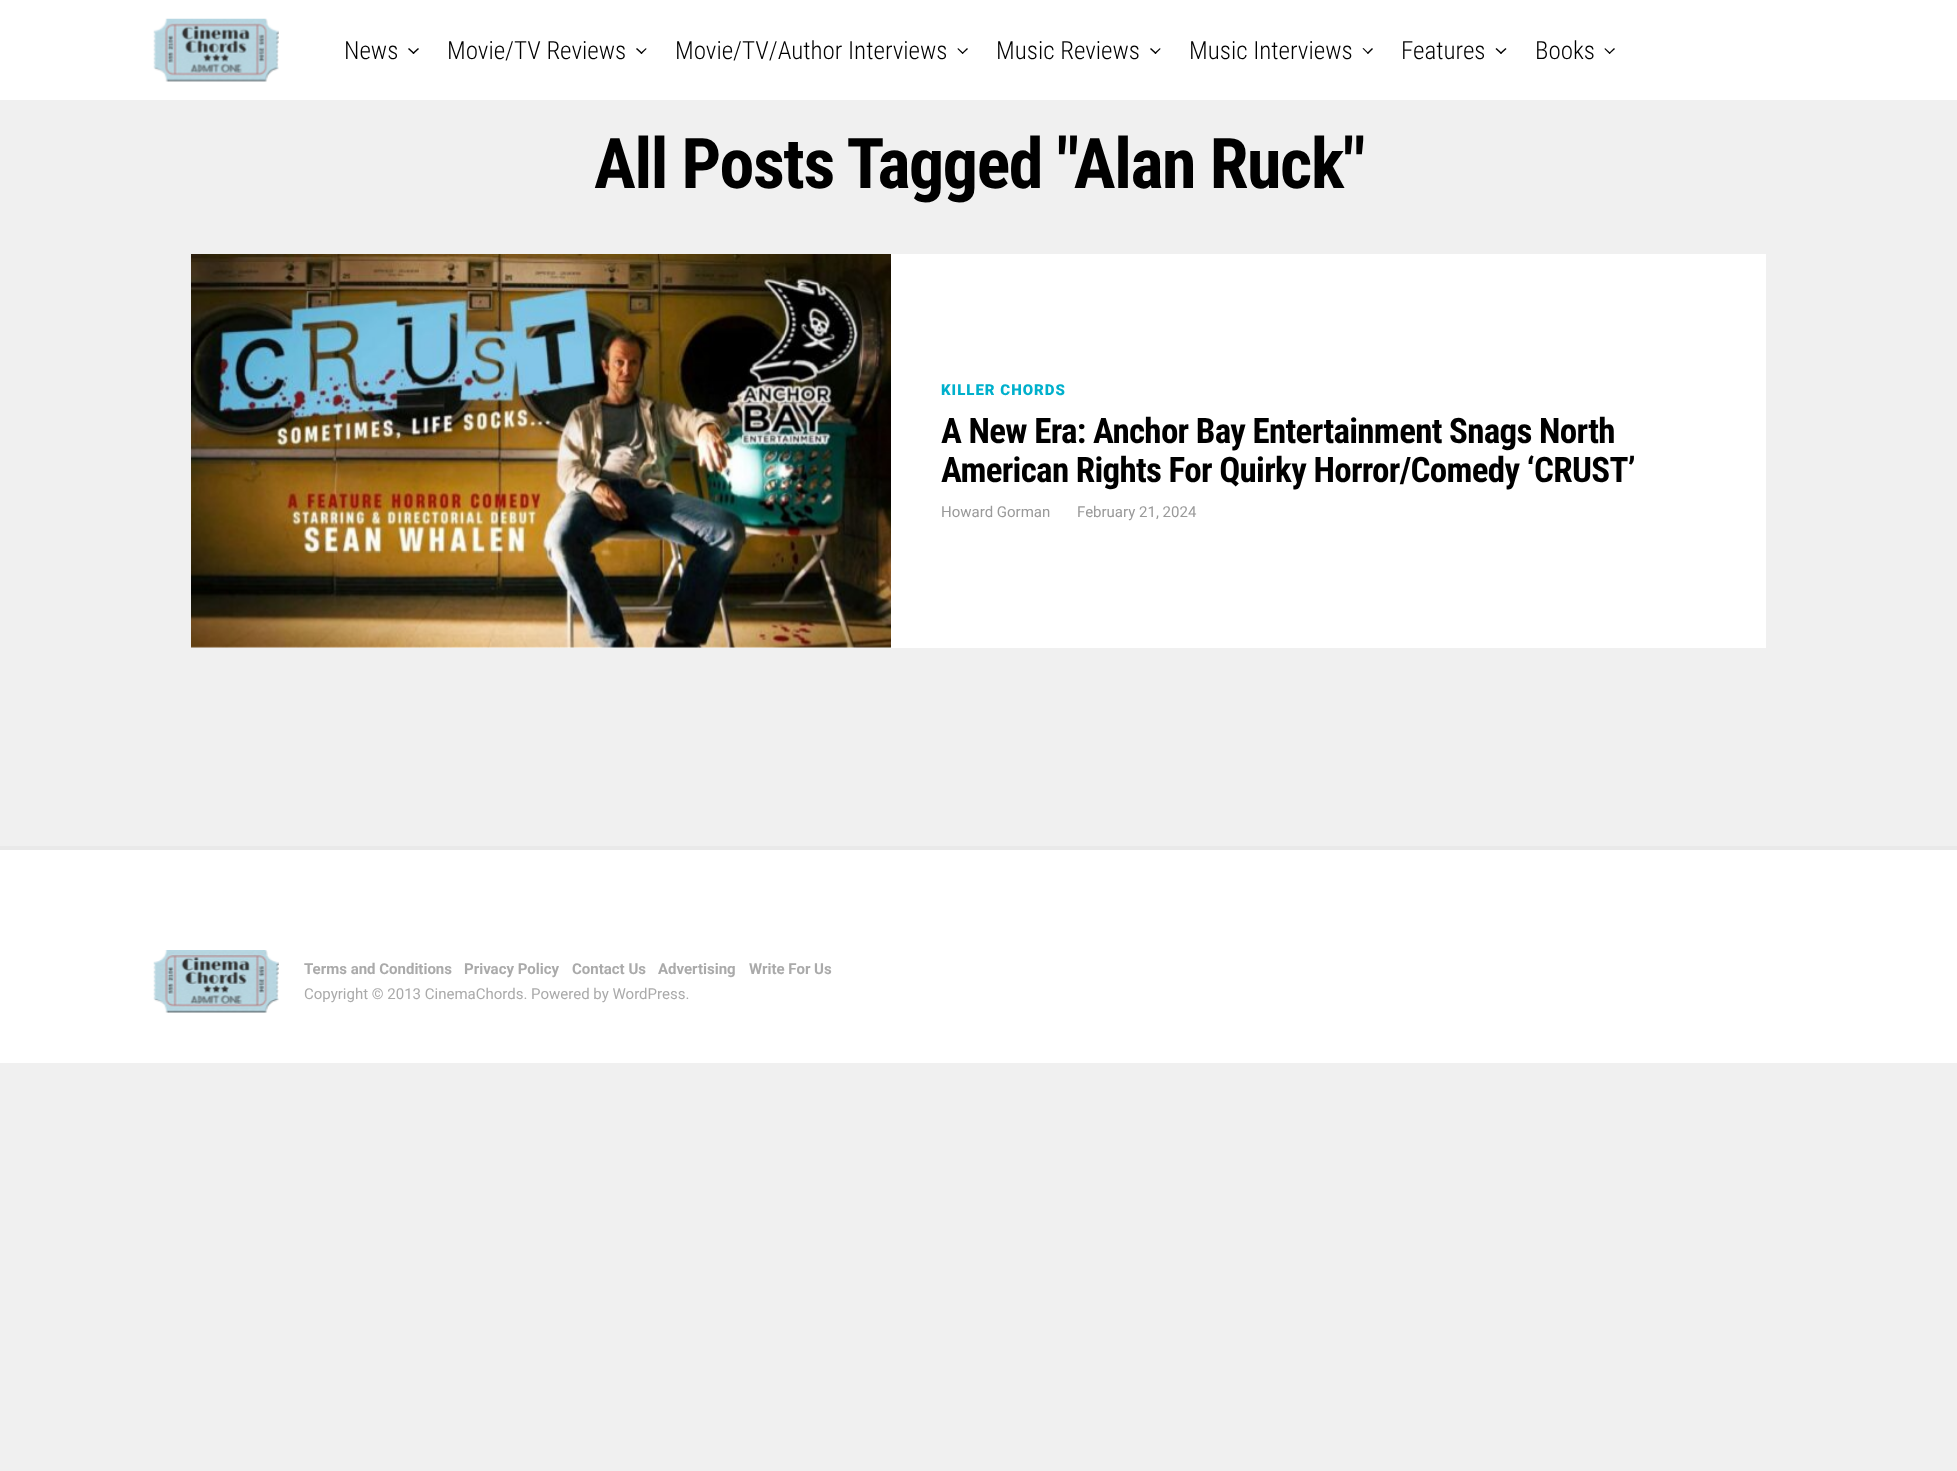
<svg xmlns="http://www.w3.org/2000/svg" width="1957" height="1471">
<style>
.a{font:300 25px Roboto Condensed;fill:#000}
.b{font:bold 70px Roboto Condensed;letter-spacing:-1.4px;fill:#000}
.c{font:900 15px Roboto;letter-spacing:1px;fill:#00b0cc}
.d{font:bold 35px Roboto Condensed;letter-spacing:-0.7px;fill:#000}
.e{font:15px Roboto;fill:#999}
.f{font:bold 15px Roboto;fill:#aaa}
.g{font:15px Roboto;fill:#aaa}
</style>
<rect width="100%" height="100%" fill="#f0f0f0"/>
<path fill="#fff" d="M0 0h1957v100H0z"/>
<image href="1.png" x="153" y="18" width="126" height="64"/>
<path fill="#000" d="M418 48l1 1l-5.5 5l-1-1z"/>
<path fill="#000" d="M409 48l5.5 5l-1 1l-5.5-5z"/>
<path fill="#000" d="M646 48l.5 1l-5 5l-1-1z"/>
<path fill="#000" d="M637 48l5.5 5l-1 1l-5.5-5z"/>
<path fill="#000" d="M967 48l1 1l-5.5 5l-.5-1z"/>
<path fill="#000" d="M958 48l5.5 5l-1 1l-5-5z"/>
<path fill="#000" d="M1160 48l.5 1l-5 5l-1-1z"/>
<path fill="#000" d="M1151 48l5.5 5l-1 1l-5.5-5z"/>
<path fill="#000" d="M1372 48l1 1l-5 5l-1-1z"/>
<path fill="#000" d="M1363.5 48l5 5l-.5 1l-5.5-5.5z"/>
<path fill="#000" d="M1505.5 48l1 1l-5.5 5l-1-1z"/>
<path fill="#000" d="M1496.5 48l5.5 5l-1 1l-5.5-5z"/>
<path fill="#000" d="M1614 48l1 1l-5.5 5l-.5-1z"/>
<path fill="#000" d="M1605 48l5.5 5l-1 1l-5-5z"/>
<path fill="#fff" d="M191 254h1575v394H191z"/>
<image href="2.png" x="191" y="254" width="700" height="394"/>
<path fill="#fff" d="M0 850h1957v213H0z"/>
<path fill="#e9e9e9" d="M0 846h1957v4H0z"/>
<image href="3.png" x="153" y="950" width="126" height="63"/>
<text class="a" x="344" y="59">News</text>
<text class="a" x="447" y="59">Movie/TV Reviews</text>
<text class="a" x="675" y="59">Movie/TV/Author Interviews</text>
<text class="a" x="996" y="59">Music Reviews</text>
<text class="a" x="1189" y="59">Music Interviews</text>
<text class="a" x="1401" y="59">Features</text>
<text class="a" x="1535" y="59">Books</text>
<text class="b" x="594" y="188">All Posts Tagged "Alan Ruck"</text>
<text class="c" x="941" y="395">KILLER CHORDS</text>
<text class="d" x="941" y="443">A New Era: Anchor Bay Entertainment Snags North</text>
<text class="d" x="941" y="482">American Rights For Quirky Horror/Comedy ‘CRUST’</text>
<text class="e" x="941" y="517">Howard Gorman</text>
<text class="e" x="1077" y="517">February 21, 2024</text>
<text class="f" x="304" y="974">Terms and Conditions</text>
<text class="f" x="464" y="974">Privacy Policy</text>
<text class="f" x="572" y="974">Contact Us</text>
<text class="f" x="658" y="974">Advertising</text>
<text class="f" x="749" y="974">Write For Us</text>
<text class="g" x="304" y="999">Copyright © 2013 CinemaChords. Powered by WordPress.</text>
</svg>
